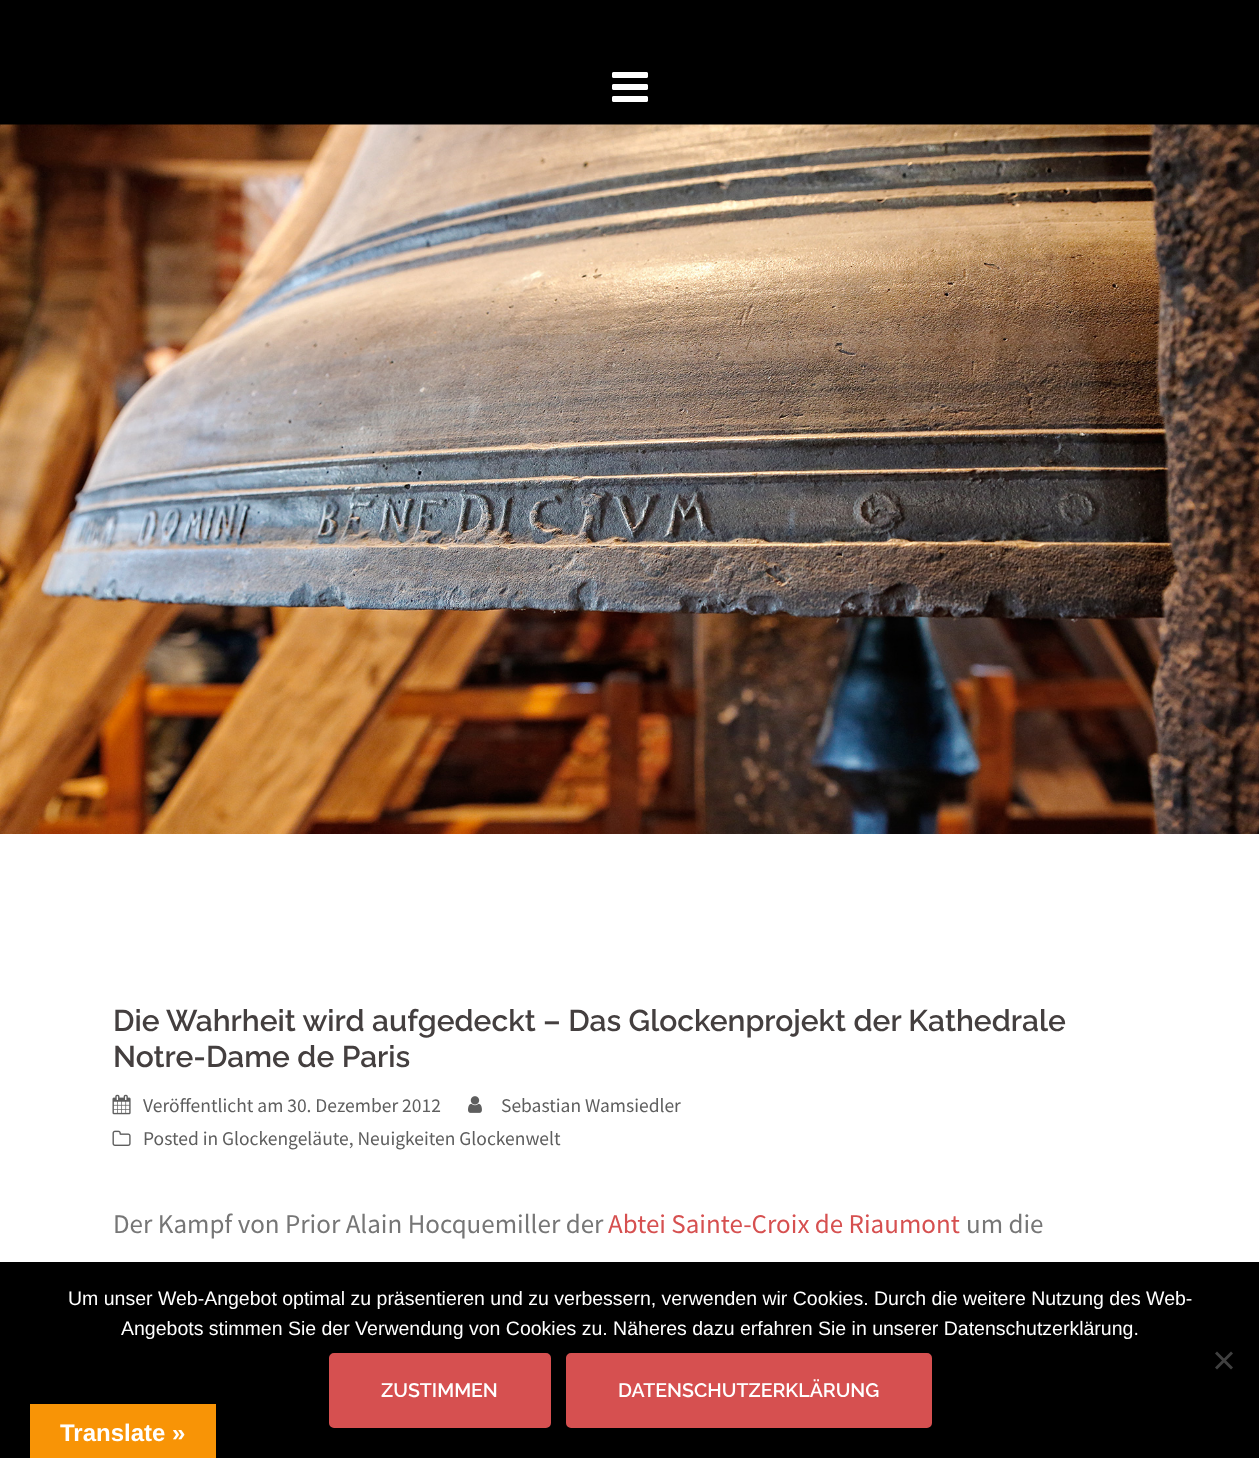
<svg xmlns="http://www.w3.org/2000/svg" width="1259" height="1458">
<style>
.a{font:600 30px Raleway;fill:#443f3f}
.b{font:19.5px Source Sans Pro;fill:#5e5e5e}
.c{font:27px Source Sans Pro;fill:#767676}
.d{font:27px Source Sans Pro;fill:#d65050}
.e{font:19.5px Liberation Sans;fill:#fff}
.f{font:600 19.5px Raleway;fill:#fff}
.g{font:bold 24px Liberation Sans;fill:#fff}
</style>
<rect width="100%" height="100%" fill="#fff"/>
<path fill="#000" d="M0 0h1259v125H0z"/>
<image href="1.png" x="612" y="72" width="36" height="30"/>
<image href="2.png" x="0" y="124" width="1259" height="710"/>
<image href="3.png" x="112" y="1094" width="19" height="21"/>
<image href="4.png" x="468" y="1096" width="14" height="17"/>
<image href="5.png" x="112" y="1130" width="19" height="16"/>
<path fill="#000" d="M0 1262h1259v196H0z"/>
<path fill="#404040" d="M1231 1351.5l2 2l-16 16l-2-2z"/>
<path fill="#404040" d="M1215 1353.5l2-2l16 16l-2 2z"/>
<rect fill="#d65050" stroke="#d65050" stroke-width="2" x="330" y="1354" width="220" height="73" rx="4"/>
<rect fill="#d65050" stroke="#d65050" stroke-width="2" x="567" y="1354" width="364" height="73" rx="4"/>
<path fill="#f89406" d="M30 1404h186v54H30z"/>
<text class="a" x="113" y="1031">Die Wahrheit wird aufgedeckt – Das Glockenprojekt der Kathedrale</text>
<text class="a" x="113" y="1067">Notre-Dame de Paris</text>
<text class="b" x="143" y="1112">Veröffentlicht am 30. Dezember 2012</text>
<text class="b" x="501" y="1112">Sebastian Wamsiedler</text>
<text class="b" x="143" y="1145">Posted in Glockengeläute, Neuigkeiten Glockenwelt</text>
<text class="c" x="113" y="1233">Der Kampf von Prior Alain Hocquemiller der</text>
<text class="d" x="608" y="1233">Abtei Sainte-Croix de Riaumont</text>
<text class="c" x="966" y="1233">um die</text>
<text class="e" x="68" y="1305">Um unser Web-Angebot optimal zu präsentieren und zu verbessern, verwenden wir Cookies. Durch die weitere Nutzung des Web-</text>
<text class="e" x="121" y="1335">Angebots stimmen Sie der Verwendung von Cookies zu. Näheres dazu erfahren Sie in unserer Datenschutzerklärung.</text>
<text class="f" x="381" y="1397">ZUSTIMMEN</text>
<text class="f" x="618" y="1397">DATENSCHUTZERKLÄRUNG</text>
<text class="g" x="60" y="1441">Translate »</text>
</svg>
